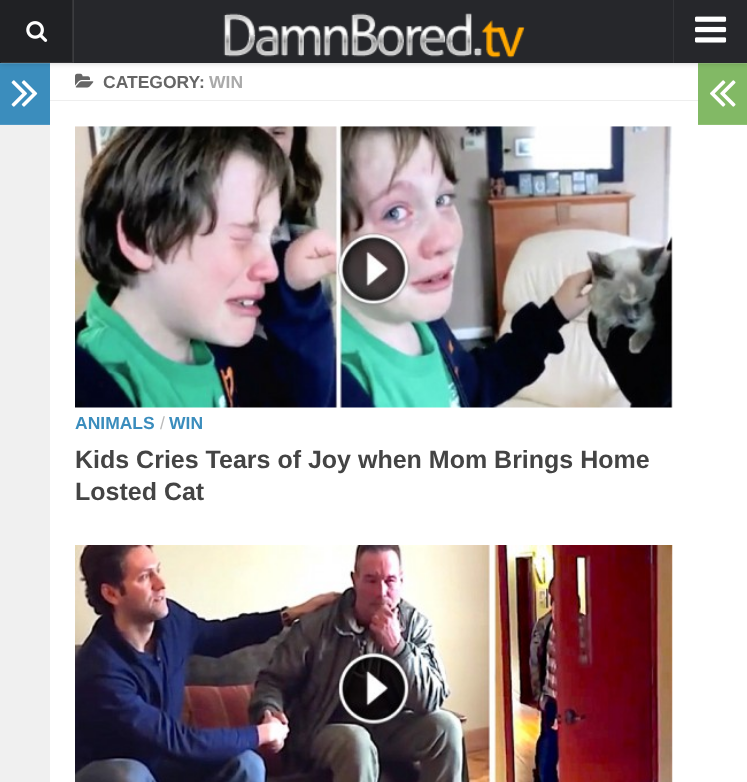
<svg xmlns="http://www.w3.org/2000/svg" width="747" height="782">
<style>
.a{font:bold 17.5px Liberation Sans;fill:#666}
.b{font:bold 17.5px Liberation Sans;fill:#aaa}
.c{font:bold 17.5px Liberation Sans;fill:#3b8dbd}
.d{font:17.5px Liberation Sans;fill:#bbb}
.e{font:bold 25px Liberation Sans;fill:#444}
</style>
<rect width="100%" height="100%" fill="#fff"/>
<path fill="#3b8dbd" d="M0 63h50v61H0z"/>
<path fill="#82b965" d="M698 63h49v61H698z"/>
<path fill="#ffffff26" d="M0 62v2h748v-63v61z"/>
<path fill="#00000033" filter="blur(3px)" d="M0 0h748v63H0z"/>
<path fill="#26272b" d="M0 0h747v63H0z"/>
<path fill="#3c3d40" d="M1 62v1h73v-63h-2v62z"/>
<path fill="#00000026" d="M0 0h73v63H0z"/>
<image href="1.png" x="26" y="21" width="22" height="21"/>
<path fill="#333438" d="M673 0h1v63H673z"/>
<image href="2.png" x="695" y="16" width="32" height="27"/>
<image href="3.png" x="223" y="13" width="302" height="45"/>
<path fill="#f0f0f0" d="M0 125h50v657H0z"/>
<path fill="#4f98c4" d="M0 124h50v1H0z"/>
<image href="4.png" x="11" y="80" width="27" height="27"/>
<path fill="#eee" d="M50 100h648v1H50z"/>
<image href="5.png" x="75" y="73" width="19" height="15"/>
<image href="6.png" x="75" y="126" width="598" height="282"/>
<image href="7.png" x="75" y="545" width="598" height="237"/>
<path fill="#8fc074" d="M698 124h49v1H698z"/>
<image href="8.png" x="710" y="80" width="26" height="27"/>
<text class="a" x="103" y="88">CATEGORY:</text>
<text class="b" x="209" y="88">WIN</text>
<text class="c" x="75" y="429">ANIMALS</text>
<text class="d" x="160" y="429">/</text>
<text class="c" x="169" y="429">WIN</text>
<text class="e" x="75" y="468">Kids Cries Tears of Joy when Mom Brings Home</text>
<text class="e" x="75" y="500">Losted Cat</text>
</svg>
